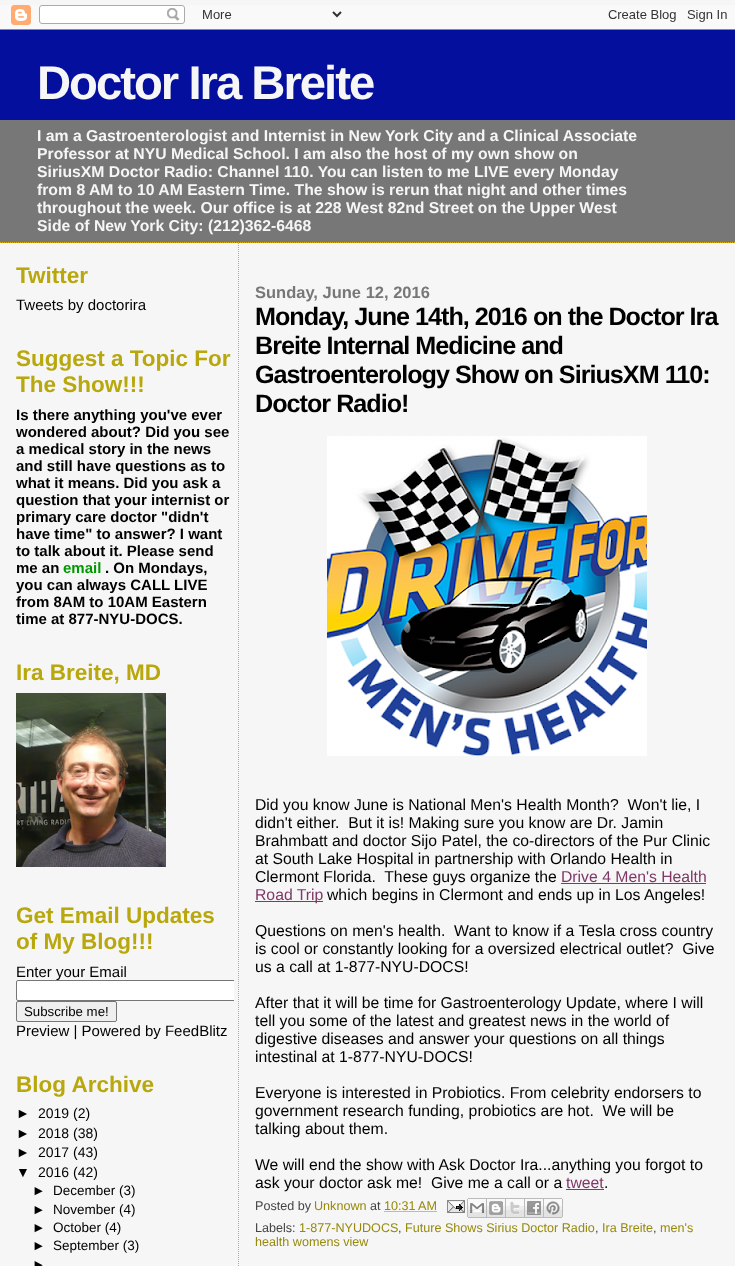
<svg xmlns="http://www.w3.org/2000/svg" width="735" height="1266">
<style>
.a{font:bold 47.25px Liberation Sans;letter-spacing:-2px;fill:#f6f6f6}
.b{font:bold 15.75px Liberation Sans;fill:#f6f6f6}
.c{font:bold 22.5px Liberation Sans;fill:#b8a80d}
.d{font:15px Liberation Sans;fill:#000}
.e{font:bold 15px Liberation Sans;fill:#000}
.f{font:bold 15px Liberation Sans;fill:#090}
.g{font:13.25px Liberation Sans;fill:#000}
.h{font:14px Liberation Sans;fill:#000}
.i{font:13.5px Liberation Sans;fill:#000}
.j{font:bold 16.5px Liberation Sans;fill:#777}
.k{font:bold 25.2px Liberation Sans;letter-spacing:-1px;fill:#000}
.l{font:15.75px Liberation Sans;fill:#000}
.m{font:15.75px Liberation Sans;fill:#803868}
.n{font:12.6px Liberation Sans;fill:#444}
.o{font:12.6px Liberation Sans;fill:#968a0a}
</style>
<defs>
<clipPath id="clip1"><path d="M16 263h218v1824H16z"/></clipPath>
</defs>
<rect width="100%" height="100%" fill="#f6f6f6"/>
<image href="1.png" x="0" y="5" width="735" height="25"/>
<path fill="#777" d="M0 120h735v123H0z"/>
<path fill="none" stroke="#e0ad12" stroke-dasharray="1 1" d="M0 242.5h735"/>
<path fill="#050f9e" d="M0 30h735v90H0z"/>
<image href="2.png" x="16" y="693" width="150" height="174"/>
<rect fill="#efefef" stroke="#767676" x="16.5" y="1001.5" width="100" height="20" rx="1.5"/>
<path fill="none" stroke="#e0ad12" stroke-dasharray="1 1" d="M238.5 243v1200"/>
<image href="3.png" x="327" y="436" width="320" height="320"/>
<path fill="#803868" d="M561 883h145v1H561z"/>
<path fill="#803868" d="M255 901h68v1H255z"/>
<path fill="#803868" d="M566 1189h38v1H566z"/>
<path fill="none" stroke="#968a0a" stroke-dasharray="1 1" d="M384.5 1211.5h52.5"/>
<image href="4.png" x="447" y="1200" width="18" height="13"/>
<image href="5.png" x="467" y="1198" width="20" height="20"/>
<image href="6.png" x="487" y="1198" width="19" height="20"/>
<image href="7.png" x="506" y="1198" width="19" height="20"/>
<image href="8.png" x="525" y="1198" width="19" height="20"/>
<image href="9.png" x="544" y="1198" width="19" height="20"/>
<text class="a" x="37" y="99">Doctor Ira Breite</text>
<text class="b" x="37" y="141">I am a Gastroenterologist and Internist in New York City and a Clinical Associate</text>
<text class="b" x="37" y="159">Professor at NYU Medical School. I am also the host of my own show on</text>
<text class="b" x="37" y="177">SiriusXM Doctor Radio: Channel 110. You can listen to me LIVE every Monday</text>
<text class="b" x="37" y="195">from 8 AM to 10 AM Eastern Time. The show is rerun that night and other times</text>
<text class="b" x="37" y="213">throughout the week. Our office is at 228 West 82nd Street on the Upper West</text>
<text class="b" x="37" y="231">Side of New York City: (212)362-6468</text>
<text class="c" x="16" y="283">Twitter</text>
<text class="d" x="16" y="310">Tweets by doctorira</text>
<text class="c" x="16" y="366">Suggest a Topic For</text>
<text class="c" x="16" y="392">The Show!!!</text>
<text class="e" x="16" y="420">Is there anything you've ever</text>
<text class="e" x="16" y="437">wondered about? Did you see</text>
<text class="e" x="16" y="454">a medical story in the news</text>
<text class="e" x="16" y="471">and still have questions as to</text>
<text class="e" x="16" y="488">what it means. Did you ask a</text>
<text class="e" x="16" y="505">question that your internist or</text>
<text class="e" x="16" y="522">primary care doctor "didn't</text>
<text class="e" x="16" y="539">have time" to answer? I want</text>
<text class="e" x="16" y="556">to talk about it. Please send</text>
<text class="e" x="16" y="573">me an</text>
<text class="f" x="63" y="573">email</text>
<text class="e" x="105" y="573">. On Mondays,</text>
<text class="e" x="16" y="590">you can always CALL LIVE</text>
<text class="e" x="16" y="607">from 8AM to 10AM Eastern</text>
<text class="e" x="16" y="624">time at 877-NYU-DOCS.</text>
<text class="c" x="16" y="680">Ira Breite, MD</text>
<text class="c" x="16" y="923">Get Email Updates</text>
<text class="c" x="16" y="949">of My Blog!!!</text>
<text class="d" x="16" y="977">Enter your Email</text>
<path fill="#fff" d="M18 980h216v21h-216c-1 0-2-1-2-2v-17c0-1 1-2 2-2z"/>
<text class="g" x="24" y="1016">Subscribe me!</text>
<text class="d" x="16" y="1036">Preview | Powered by FeedBlitz</text>
<text class="c" x="16" y="1092">Blog Archive</text>
<text class="h" x="16" y="1118">►</text>
<text class="h" x="38" y="1118">2019 (2)</text>
<text class="h" x="16" y="1138">►</text>
<text class="h" x="38" y="1138">2018 (38)</text>
<text class="h" x="16" y="1157">►</text>
<text class="h" x="38" y="1157">2017 (43)</text>
<text class="h" x="16" y="1177">▼</text>
<text class="h" x="38" y="1177">2016 (42)</text>
<text class="i" x="32" y="1195">►</text>
<text class="i" x="53" y="1195">December (3)</text>
<text class="i" x="32" y="1214">►</text>
<text class="i" x="53" y="1214">November (4)</text>
<text class="i" x="32" y="1232">►</text>
<text class="i" x="53" y="1232">October (4)</text>
<text class="i" x="32" y="1250">►</text>
<text class="i" x="53" y="1250">September (3)</text>
<text class="i" x="32" y="1269">►</text>
<text class="j" x="255" y="298">Sunday, June 12, 2016</text>
<text class="k" x="255" y="325">Monday, June 14th, 2016 on the Doctor Ira</text>
<text class="k" x="255" y="354">Breite Internal Medicine and</text>
<text class="k" x="255" y="383">Gastroenterology Show on SiriusXM 110:</text>
<text class="k" x="255" y="412">Doctor Radio!</text>
<text class="l" xml:space="preserve" x="255" y="810">Did you know June is National Men's Health Month?  Won't lie, I</text>
<text class="l" xml:space="preserve" x="255" y="828">didn't either.  But it is! Making sure you know are Dr. Jamin</text>
<text class="l" x="255" y="846">Brahmbatt and doctor Sijo Patel, the co-directors of the Pur Clinic</text>
<text class="l" x="255" y="864">at South Lake Hospital in partnership with Orlando Health in</text>
<text class="l" xml:space="preserve" x="255" y="882">Clermont Florida.  These guys organize the</text>
<text class="m" x="561" y="882">Drive 4 Men's Health</text>
<text class="m" x="255" y="900">Road Trip</text>
<text class="l" x="327" y="900">which begins in Clermont and ends up in Los Angeles!</text>
<text class="l" xml:space="preserve" x="255" y="936">Questions on men's health.  Want to know if a Tesla cross country</text>
<text class="l" xml:space="preserve" x="255" y="954">is cool or constantly looking for a oversized electrical outlet?  Give</text>
<text class="l" x="255" y="972">us a call at 1-877-NYU-DOCS!</text>
<text class="l" x="255" y="1008">After that it will be time for Gastroenterology Update, where I will</text>
<g clip-path="url(#clip1)">
<rect fill="none" stroke="#767676" x="16.5" y="980.5" width="264" height="20" rx="1.5"/>
</g>
<text class="l" x="255" y="1026">tell you some of the latest and greatest news in the world of</text>
<text class="l" x="255" y="1044">digestive diseases and answer your questions on all things</text>
<text class="l" x="255" y="1062">intestinal at 1-877-NYU-DOCS!</text>
<text class="l" x="255" y="1098">Everyone is interested in Probiotics. From celebrity endorsers to</text>
<text class="l" xml:space="preserve" x="255" y="1116">government research funding, probiotics are hot.  We will be</text>
<text class="l" x="255" y="1134">talking about them.</text>
<text class="l" x="255" y="1170">We will end the show with Ask Doctor Ira...anything you forgot to</text>
<text class="l" xml:space="preserve" x="255" y="1188">ask your doctor ask me!  Give me a call or a</text>
<text class="m" x="566" y="1188">tweet</text>
<text class="l" x="604" y="1188">.</text>
<text class="n" x="255" y="1210">Posted by</text>
<text class="o" x="314" y="1210">Unknown</text>
<text class="n" x="370" y="1210">at</text>
<text class="o" x="384" y="1210">10:31 AM</text>
<text class="n" x="255" y="1232">Labels:</text>
<text class="o" x="299" y="1232">1-877-NYUDOCS</text>
<text class="n" x="398" y="1232">,</text>
<text class="o" x="405" y="1232">Future Shows Sirius Doctor Radio</text>
<text class="n" x="595" y="1232">,</text>
<text class="o" x="602" y="1232">Ira Breite</text>
<text class="n" x="653" y="1232">,</text>
<text class="o" x="660" y="1232">men's</text>
<text class="o" x="255" y="1246">health womens view</text>
</svg>
